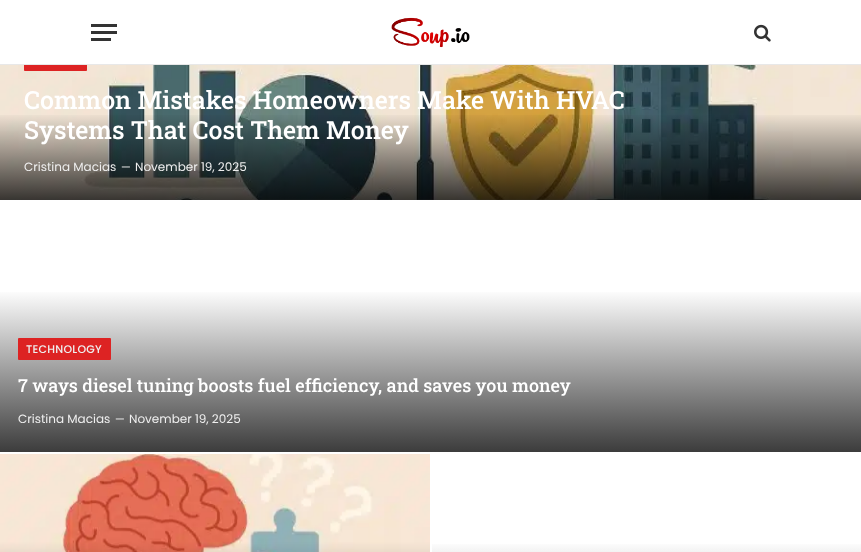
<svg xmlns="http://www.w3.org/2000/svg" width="861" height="552">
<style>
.a{font:500 25px Roboto Slab;fill:#fff}
.b{font:12px Poppins;fill:#efefef}
.c{font:11px Poppins;fill:#efefef}
.d{font:500 11px Poppins;letter-spacing:0.25px;fill:#efefef}
.e{font:500 18px Roboto Slab;fill:#fff}
</style>
<defs>
<linearGradient id="g1" gradientUnits="userSpaceOnUse" x1="431" y1="65" x2="431" y2="200"><stop offset="0.35" stop-color="#000" stop-opacity="0"/><stop offset="1" stop-color="#000" stop-opacity="0.77"/></linearGradient>
<linearGradient id="g2" gradientUnits="userSpaceOnUse" x1="431" y1="202" x2="431" y2="452"><stop offset="0.35" stop-color="#fff"/><stop offset="1" stop-color="#3c3c3c"/></linearGradient>
<linearGradient id="g3" gradientUnits="userSpaceOnUse" x1="647" y1="454" x2="647" y2="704"><stop offset="0.35" stop-color="#fff"/><stop offset="1" stop-color="#3c3c3c"/></linearGradient>
</defs>
<rect width="100%" height="100%" fill="#fff"/>
<path fill="#e8e8e8" d="M0 64h861v1H0z"/>
<path fill="#333" d="M91 38h20v3H91z"/>
<path fill="#333" d="M91 24h26v3H91z"/>
<path fill="#333" d="M91 31h26v3H91z"/>
<image href="1.png" x="391" y="17" width="79" height="31"/>
<image href="2.png" x="754" y="24" width="17" height="18"/>
<image href="3.png" x="0" y="65" width="861" height="135"/>
<path fill="#dd2323" d="M24 65h63v5c0 .5-.5 1-1 1h-61c-.5 0-1-.5-1-1z"/>
<path fill="url(#g1)" d="M0 115h861v85H0z"/>
<path fill="url(#g2)" d="M0 292h861v160H0z"/>
<rect fill="#dd2323" x="18" y="338" width="93" height="22" rx="1"/>
<image href="4.png" x="0" y="454" width="430" height="98"/>
<path fill="url(#g3)" d="M432 544h429v8H432z"/>
<text class="a" x="24" y="109">Common Mistakes Homeowners Make With HVAC</text>
<text class="a" x="24" y="139">Systems That Cost Them Money</text>
<text class="b" x="24" y="171">Cristina Macias</text>
<text class="c" x="121" y="171">—</text>
<text class="b" x="135" y="171">November 19, 2025</text>
<text class="d" x="26" y="353">TECHNOLOGY</text>
<text class="e" x="18" y="392">7 ways diesel tuning boosts fuel efficiency, and saves you money</text>
<text class="b" x="18" y="423">Cristina Macias</text>
<text class="c" x="115" y="423">—</text>
<text class="b" x="129" y="423">November 19, 2025</text>
</svg>
